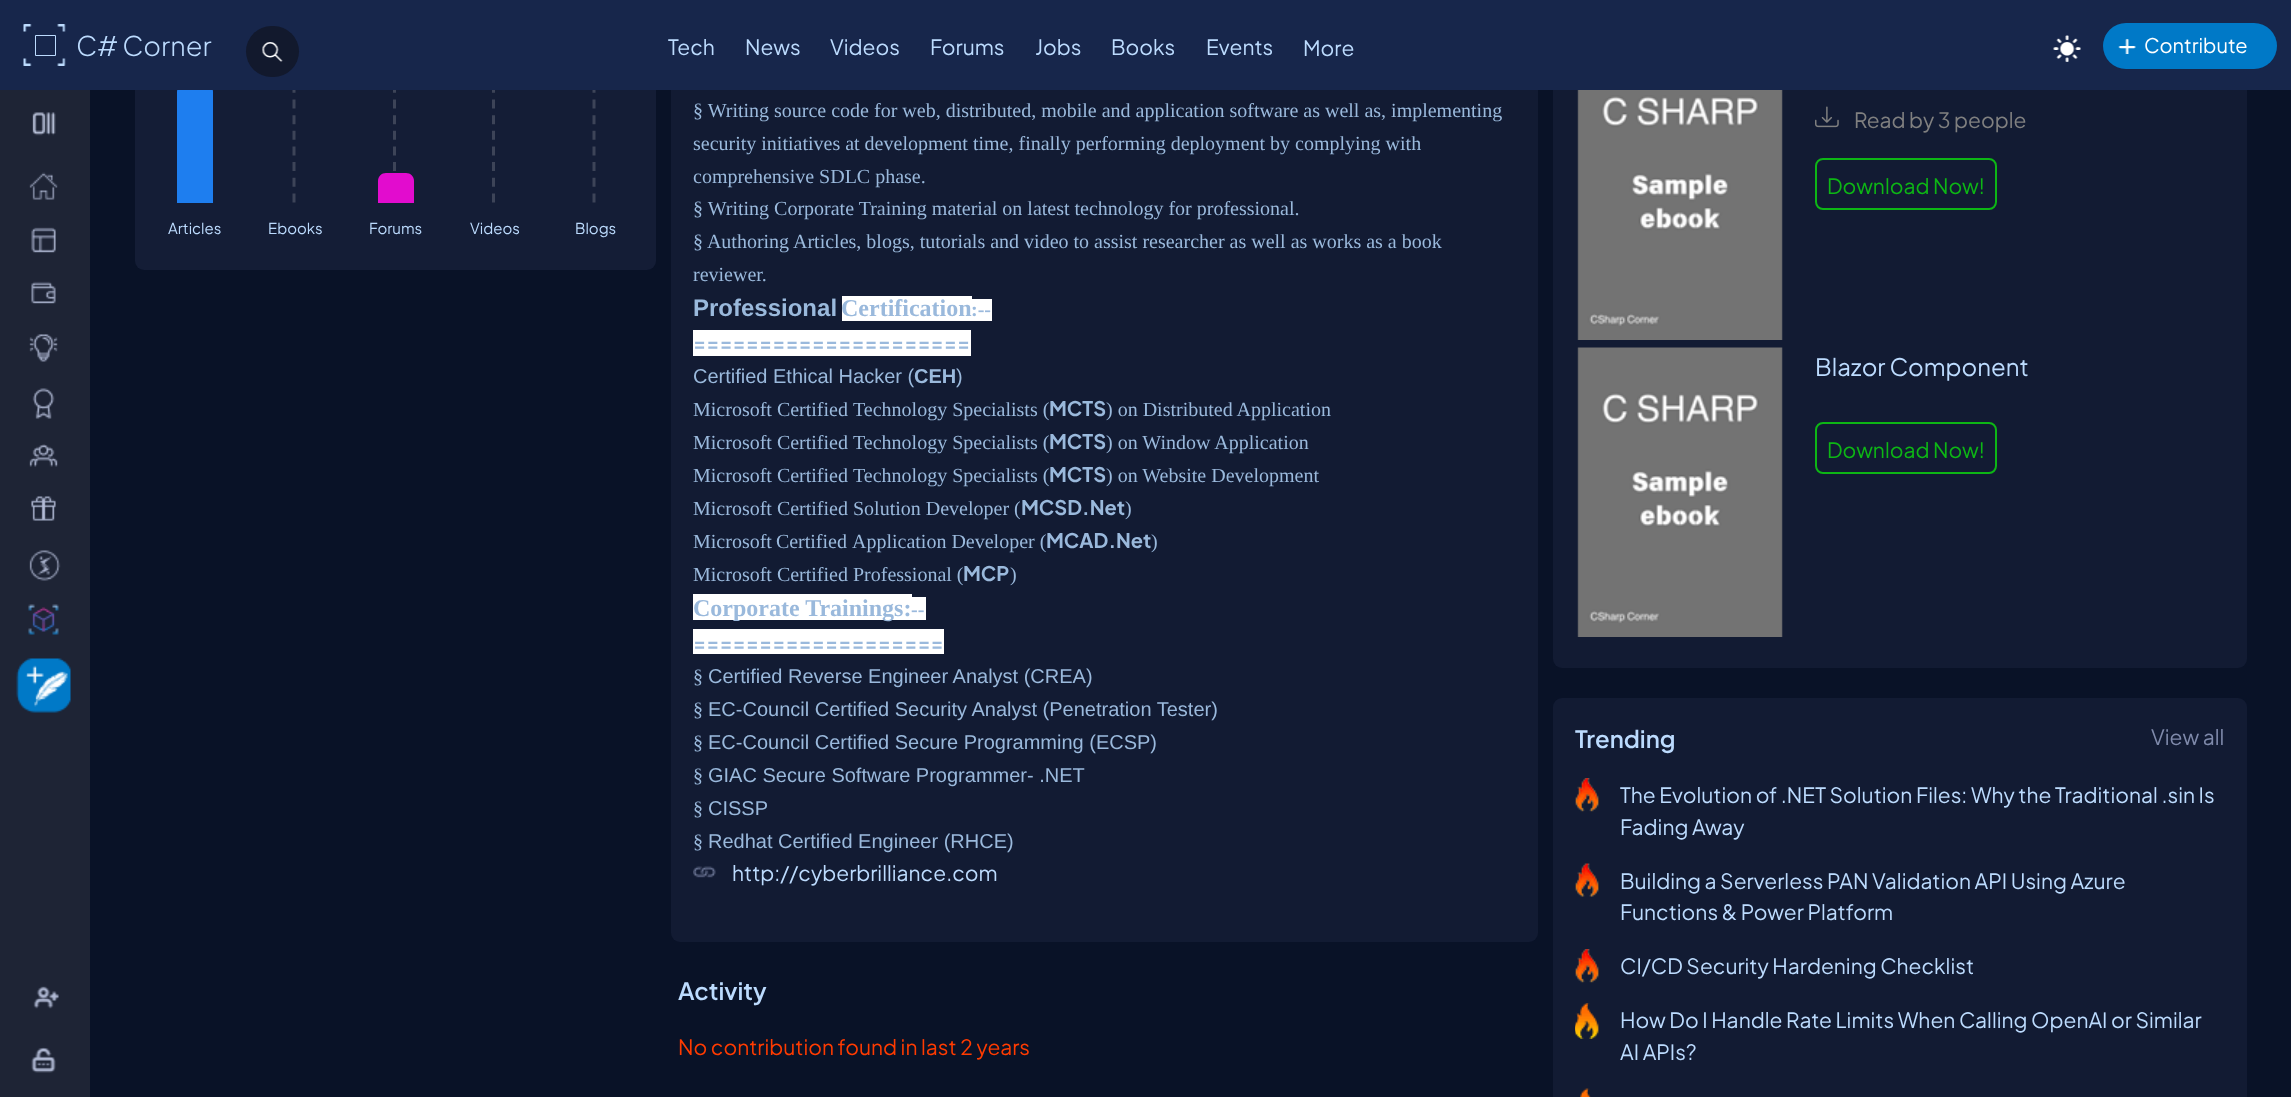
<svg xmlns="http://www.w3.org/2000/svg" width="2291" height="1097">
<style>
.a{font:300 27px Plus Jakarta Sans;fill:#bcdbfe}
.b{font:21px Plus Jakarta Sans;fill:#bcdbfe}
.c{font:20px Plus Jakarta Sans;fill:#fff}
.d{font:15px Plus Jakarta Sans;fill:#bcdbfe}
.e{font:20px Liberation Serif;fill:#9ab9dc}
.f{font:bold 24px Liberation Sans;fill:#9ab9dc}
.g{font:bold 24px Liberation Serif;fill:#9ab9dc}
.h{font:bold 20px Liberation Serif;fill:#9ab9dc}
.i{font:bold 20px Plus Jakarta Sans;fill:#9ab9dc}
.j{font:20px Liberation Sans;fill:#9ab9dc}
.k{font:bold 20px Liberation Sans;fill:#9ab9dc}
.l{font:600 24px Plus Jakarta Sans;fill:#bcdbfe}
.m{font:21px Plus Jakarta Sans;fill:#ff3b00}
.n{font:21px Plus Jakarta Sans;fill:#808080}
.o{font:21px Plus Jakarta Sans;fill:#0db615}
.p{font:24px Plus Jakarta Sans;fill:#bcdbfe}
.q{font:21px Plus Jakarta Sans;fill:#7f8aab}
</style>
<rect width="100%" height="100%" fill="#091227"/>
<rect fill="#141d36" x="135" y="-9" width="521" height="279" rx="9"/>
<path fill="#1e7eef" d="M185 84h20c4.5 0 8 3.5 8 8v111h-36v-111c0-4.5 3.5-8 8-8z"/>
<path fill="none" stroke="#3d4458" stroke-width="3" stroke-dasharray="9 6.66" d="M294 52.5v150"/>
<path fill="none" stroke="#3d4458" stroke-width="3" stroke-dasharray="9 6.66" d="M394.5 52.5v150"/>
<path fill="none" stroke="#3d4458" stroke-width="3" stroke-dasharray="9 6.66" d="M493.5 52.5v150"/>
<path fill="none" stroke="#3d4458" stroke-width="3" stroke-dasharray="9 6.66" d="M594 52.5v150"/>
<rect fill="#121b33" x="671" y="-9" width="867" height="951" rx="9"/>
<rect fill="#121b33" x="1553" y="-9" width="694" height="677" rx="9"/>
<path fill="#17264b" d="M0 0h2291v90H0z"/>
<image href="1.png" x="23" y="24" width="43" height="42"/>
<path fill="none" stroke="#bcdbfe" d="M35.5 35.5h20v20H35.5z"/>
<rect fill="#12192d" x="246" y="26" width="53" height="51" rx="25.5"/>
<image href="2.png" x="262" y="42" width="21" height="20"/>
<image href="3.png" x="2053" y="35" width="28" height="27"/>
<rect fill="#0079c7" x="2103" y="23" width="174" height="46" rx="23"/>
<image href="4.png" x="2118" y="39" width="18" height="15"/>
<path fill="#1e2435" d="M0 90h90v1007H0z"/>
<image href="5.png" x="32" y="112" width="24" height="24"/>
<image href="6.png" x="29" y="172" width="29" height="28"/>
<image href="7.png" x="31" y="227" width="25" height="26"/>
<image href="8.png" x="31" y="281" width="25" height="23"/>
<image href="9.png" x="29" y="334" width="29" height="28"/>
<image href="10.png" x="32" y="388" width="23" height="31"/>
<image href="11.png" x="29" y="444" width="29" height="23"/>
<image href="12.png" x="31" y="496" width="25" height="25"/>
<image href="13.png" x="29" y="550" width="32" height="31"/>
<image href="14.png" x="28" y="604" width="31" height="31"/>
<image href="15.png" x="16" y="658" width="55" height="55"/>
<image href="16.png" x="33" y="986" width="26" height="23"/>
<image href="17.png" x="31" y="1047" width="25" height="26"/>
<path fill="#e20cce" d="M386 173h20c4.5 0 8 3.5 8 8v22h-36v-22c0-4.5 3.5-8 8-8z"/>
<path fill="#fff" d="M842 296h130v25H842z"/>
<path fill="#fff" d="M972 299h20v22H972z"/>
<path fill="#fff" d="M693 330h278v26H693z"/>
<path fill="#fff" d="M693 594h219v26H693z"/>
<path fill="#fff" d="M912 597h14v23H912z"/>
<path fill="#fff" d="M693 629h251v25H693z"/>
<image href="18.png" x="693" y="866" width="23" height="12"/>
<image href="19.png" x="1577" y="90" width="206" height="250"/>
<image href="20.png" x="1815" y="106" width="24" height="22"/>
<rect fill="none" stroke="#0db615" stroke-width="2" x="1816" y="159" width="180" height="50" rx="7"/>
<image href="21.png" x="1577" y="347" width="206" height="290"/>
<rect fill="none" stroke="#0db615" stroke-width="2" x="1816" y="423" width="180" height="50" rx="7"/>
<rect fill="#121b33" x="1553" y="698" width="694" height="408" rx="9"/>
<image href="22.png" x="1575" y="778" width="24" height="34"/>
<image href="23.png" x="1575" y="863" width="24" height="34"/>
<image href="22.png" x="1575" y="949" width="24" height="34"/>
<image href="24.png" x="1575" y="1003" width="24" height="36"/>
<image href="25.png" x="1580" y="1088" width="11" height="9"/>
<text class="a" x="76" y="56">C# Corner</text>
<text class="b" x="668" y="55">Tech</text>
<text class="b" x="745" y="55">News</text>
<text class="b" x="830" y="55">Videos</text>
<text class="b" x="930" y="55">Forums</text>
<text class="b" x="1035" y="55">Jobs</text>
<text class="b" x="1111" y="55">Books</text>
<text class="b" x="1206" y="55">Events</text>
<text class="b" x="1303" y="56">More</text>
<text class="c" x="2144" y="53">Contribute</text>
<text class="d" x="168" y="234">Articles</text>
<text class="d" x="268" y="234">Ebooks</text>
<text class="d" x="369" y="234">Forums</text>
<text class="d" x="470" y="234">Videos</text>
<text class="d" x="575" y="234">Blogs</text>
<text class="e" x="693" y="117">§ Writing source code for web, distributed, mobile and application software as well as, implementing</text>
<text class="e" x="693" y="150">security initiatives at development time, finally performing deployment by complying with</text>
<text class="e" x="693" y="183">comprehensive SDLC phase.</text>
<text class="e" x="693" y="215">§ Writing Corporate Training material on latest technology for professional.</text>
<text class="e" x="693" y="248">§ Authoring Articles, blogs, tutorials and video to assist researcher as well as works as a book</text>
<text class="e" x="693" y="281">reviewer.</text>
<text class="f" x="693" y="316">Professional</text>
<text class="g" x="841" y="316">Certification</text>
<text class="h" x="971" y="316">:--</text>
<text class="i" x="693" y="350">=====================</text>
<text class="j" x="693" y="383">Certified Ethical Hacker (</text>
<text class="k" x="914" y="383">CEH</text>
<text class="j" x="956" y="383">)</text>
<text class="e" x="693" y="416">Microsoft Certified</text>
<text class="e" x="853" y="416">Technology Specialists (</text>
<text class="i" x="1049" y="416">MCTS</text>
<text class="e" x="1106" y="416">) on Distributed Application</text>
<text class="e" x="693" y="449">Microsoft Certified</text>
<text class="e" x="853" y="449">Technology Specialists (</text>
<text class="i" x="1049" y="449">MCTS</text>
<text class="e" x="1106" y="449">) on Window Application</text>
<text class="e" x="693" y="482">Microsoft Certified</text>
<text class="e" x="853" y="482">Technology Specialists (</text>
<text class="i" x="1049" y="482">MCTS</text>
<text class="e" x="1106" y="482">) on Website Development</text>
<text class="e" x="693" y="515">Microsoft Certified Solution Developer (</text>
<text class="i" x="1021" y="515">MCSD.Net</text>
<text class="e" x="1125" y="515">)</text>
<text class="e" x="693" y="548" word-spacing="-1">Microsoft Certified</text>
<text class="e" x="852" y="548">Application Developer (</text>
<text class="i" x="1046" y="548">MCAD.Net</text>
<text class="e" x="1151" y="548">)</text>
<text class="e" x="693" y="581">Microsoft Certified Professional (</text>
<text class="i" x="963" y="581">MCP</text>
<text class="e" x="1010" y="581">)</text>
<text class="g" x="693" y="616">Corporate Trainings:</text>
<text class="h" x="911" y="616">--</text>
<text class="i" x="693" y="650">===================</text>
<text class="e" x="693" y="683">§</text>
<text class="j" x="708" y="683">Certified Reverse Engineer Analyst (CREA)</text>
<text class="e" x="693" y="716">§</text>
<text class="j" x="708" y="716">EC-Council Certified Security Analyst (Penetration Tester)</text>
<text class="e" x="693" y="749">§</text>
<text class="j" x="708" y="749">EC-Council Certified Secure Programming (ECSP)</text>
<text class="e" x="693" y="782">§</text>
<text class="j" x="708" y="782">GIAC Secure Software Programmer- .NET</text>
<text class="e" x="693" y="815">§</text>
<text class="j" x="708" y="815">CISSP</text>
<text class="e" x="693" y="848">§</text>
<text class="j" x="708" y="848">Redhat Certified Engineer (RHCE)</text>
<text class="b" x="732" y="881">http://cyberbrilliance.com</text>
<text class="l" x="678" y="1000">Activity</text>
<text class="m" x="678" y="1055">No contribution found in last 2 years</text>
<text class="n" x="1854" y="128">Read by 3 people</text>
<text class="o" x="1827" y="194">Download Now!</text>
<text class="p" x="1815" y="376">Blazor Component</text>
<text class="o" x="1827" y="458">Download Now!</text>
<text class="l" x="1575" y="748">Trending</text>
<text class="q" x="2151" y="745">View all</text>
<text class="b" x="1620" y="803">The Evolution of .NET Solution Files: Why the Traditional .sin Is</text>
<text class="b" x="1620" y="835">Fading Away</text>
<text class="b" x="1620" y="889">Building a Serverless PAN Validation API Using Azure</text>
<text class="b" x="1620" y="920">Functions &amp; Power Platform</text>
<text class="b" x="1620" y="974">CI/CD Security Hardening Checklist</text>
<text class="b" x="1620" y="1028">How Do I Handle Rate Limits When Calling OpenAI or Similar</text>
<text class="b" x="1620" y="1060">AI APIs?</text>
</svg>
